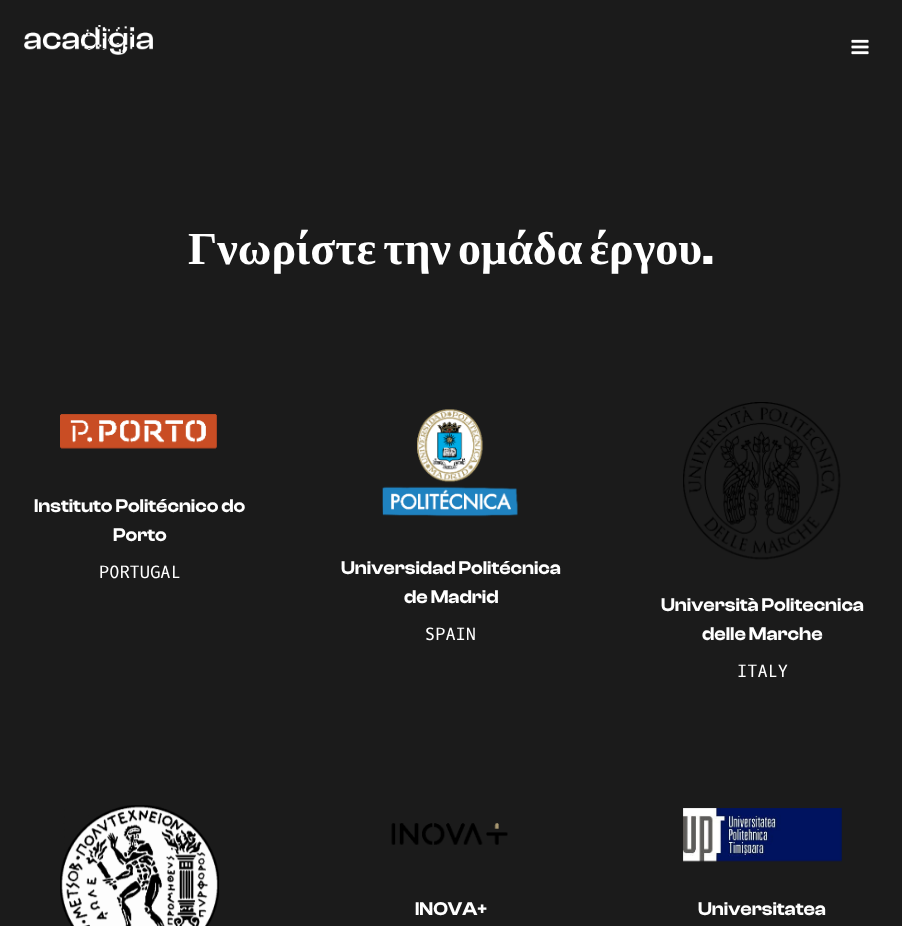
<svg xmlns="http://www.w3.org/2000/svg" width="902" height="926">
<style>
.a{font:bold 46px Liberation Serif;fill:#fff}
.b{font:600 46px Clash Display;fill:#fff}
.c{font:600 19px Clash Display;fill:#fff}
.d{font:17px Oxygen Mono;fill:#fff}
</style>
<rect width="100%" height="100%" fill="#1b1b1b"/>
<image href="1.png" x="24" y="25" width="129" height="30"/>
<image href="2.png" x="851" y="39" width="18" height="16"/>
<image href="3.png" x="60" y="414" width="157" height="35"/>
<image href="4.png" x="382" y="409" width="136" height="108"/>
<image href="5.png" x="683" y="402" width="158" height="158"/>
<image href="6.png" x="60" y="805" width="159" height="121"/>
<image href="7.png" x="391" y="823" width="117" height="22"/>
<image href="8.png" x="683" y="808" width="159" height="54"/>
<text class="a" x="188" y="264" word-spacing="-4.5">Γνωρίστε την ομάδα έργου</text>
<text class="b" x="702" y="264">.</text>
<text class="c" x="34" y="512">Instituto Politécnico do</text>
<text class="c" x="113" y="541">Porto</text>
<text class="d" x="99" y="578">PORTUGAL</text>
<text class="c" x="341" y="574">Universidad Politécnica</text>
<text class="c" x="404" y="603">de Madrid</text>
<text class="d" x="425" y="640">SPAIN</text>
<text class="c" x="661" y="611">Università Politecnica</text>
<text class="c" x="702" y="640">delle Marche</text>
<text class="d" x="737" y="677">ITALY</text>
<text class="c" x="415" y="915">INOVA+</text>
<text class="c" x="698" y="915">Universitatea</text>
</svg>
